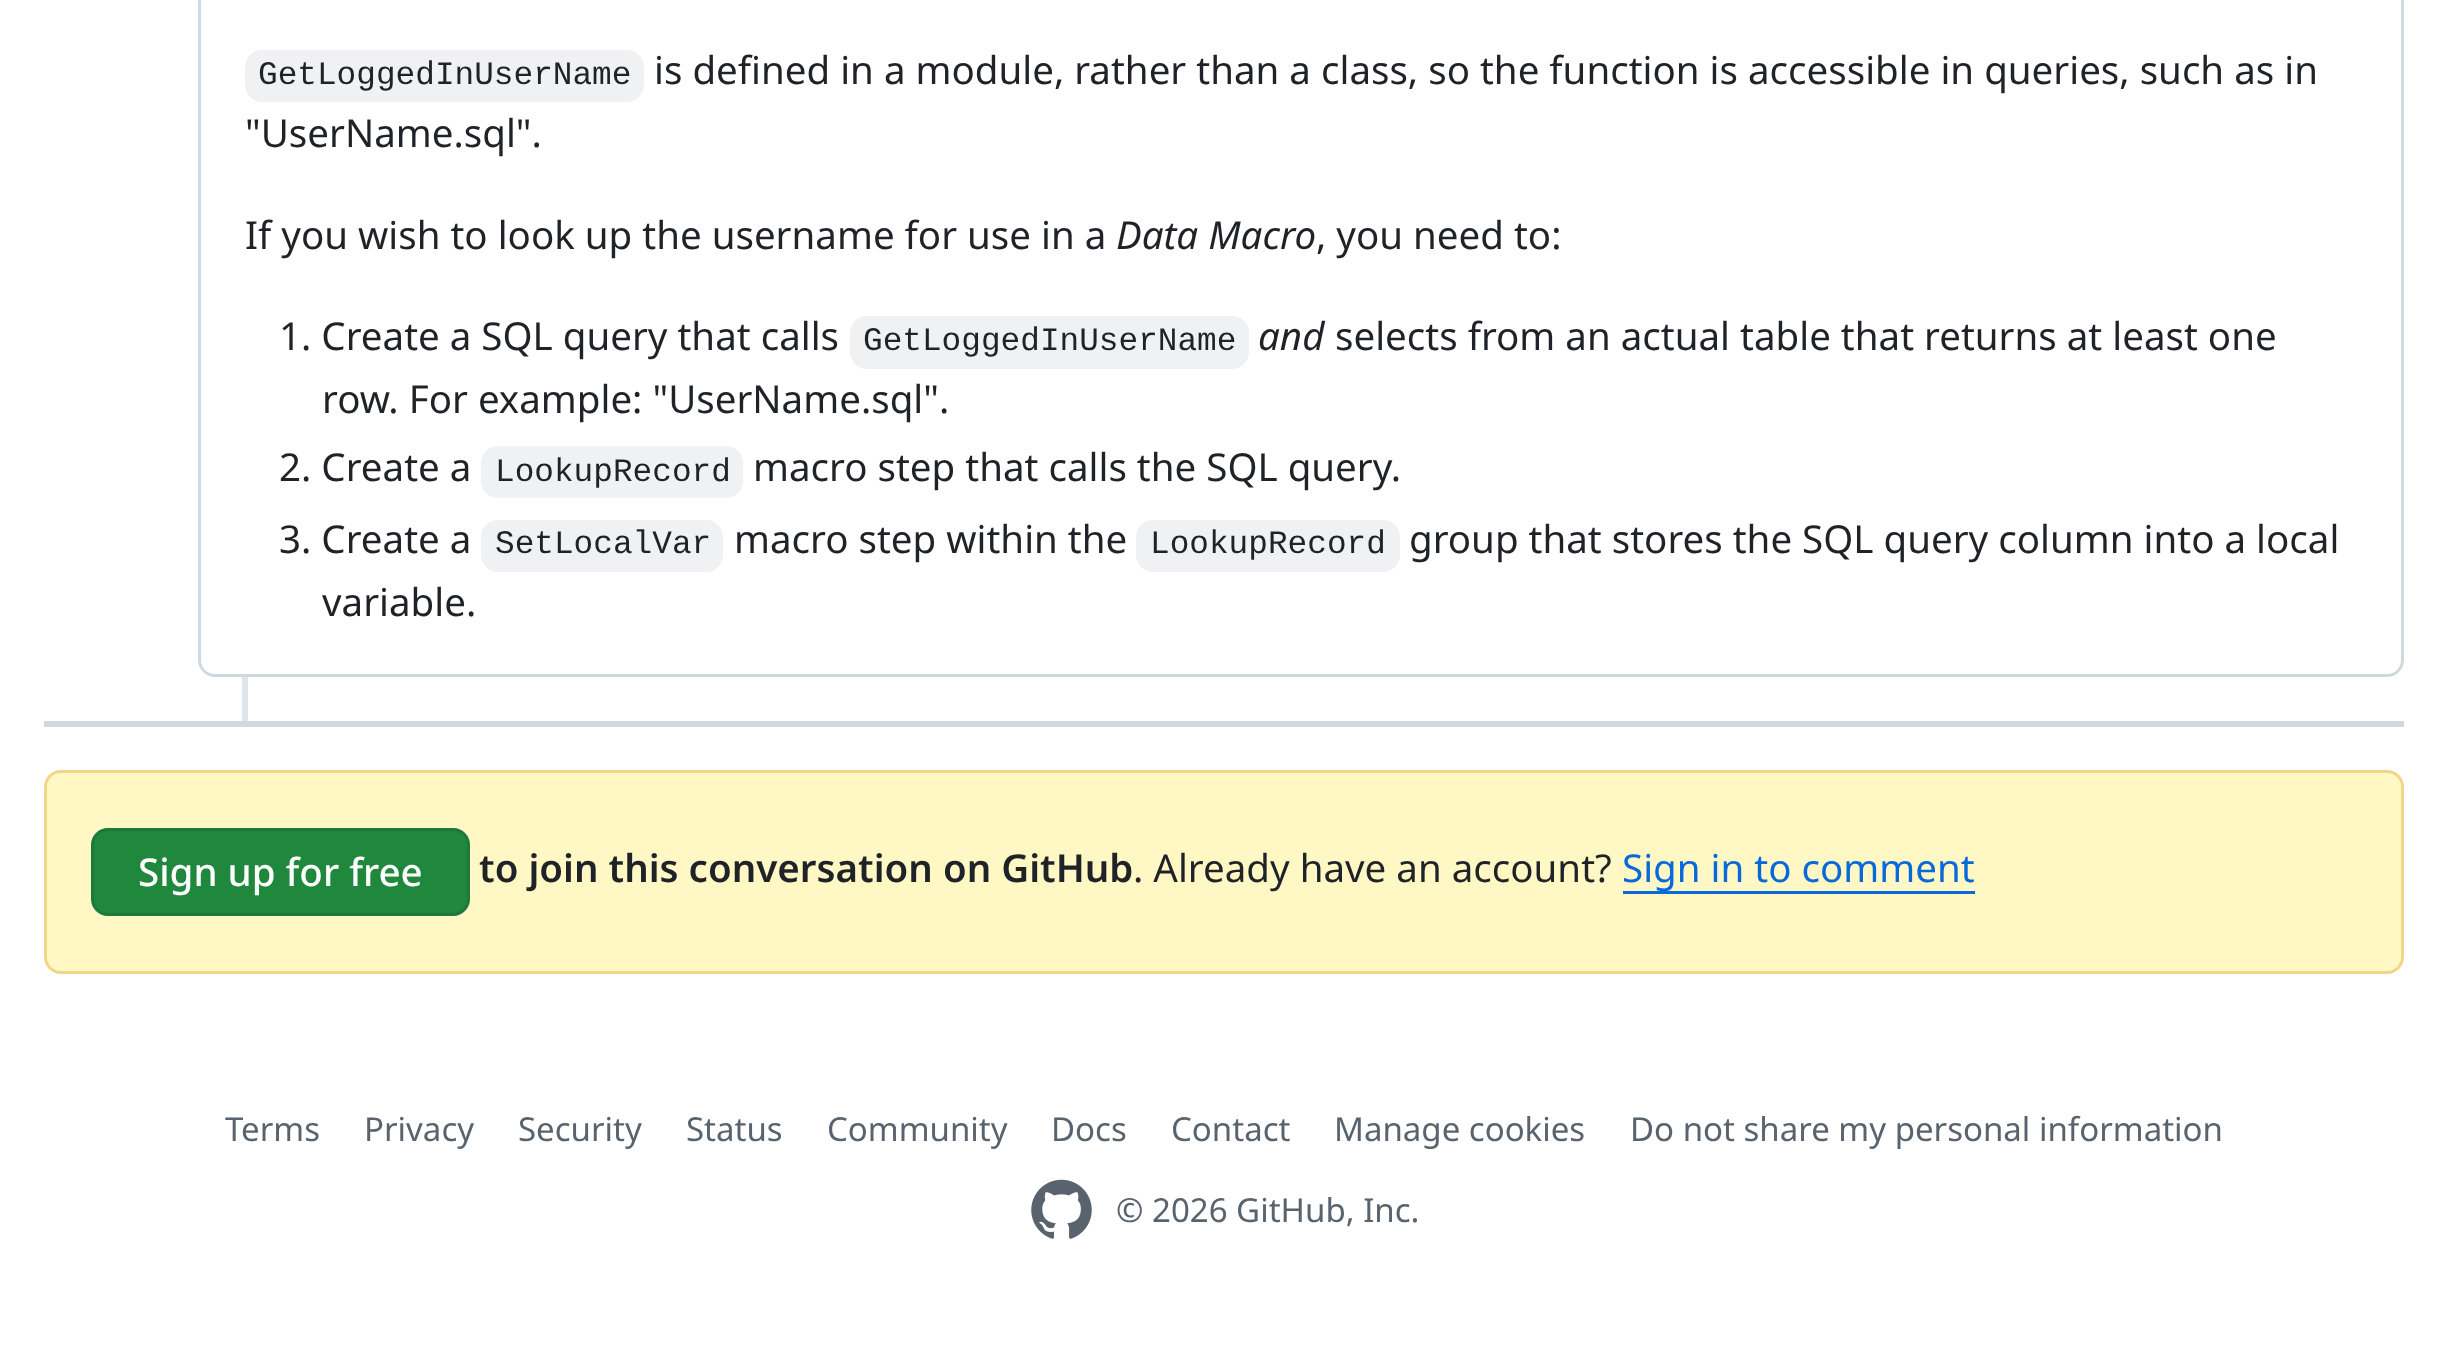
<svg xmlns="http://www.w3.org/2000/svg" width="2446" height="1355">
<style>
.a{font:32.75px Liberation Mono;fill:#1f2328}
.b{font:38.5px Noto Sans;fill:#1f2328}
.c{font:italic 38.5px Noto Sans;fill:#1f2328}
.d{font:500 38.5px Noto Sans;fill:#fff}
.e{font:600 38.5px Noto Sans;fill:#1f2328}
.f{font:38.5px Noto Sans;fill:#0969da}
.g{font:33px Noto Sans;fill:#59636e}
</style>
<rect width="100%" height="100%" fill="#fff"/>
<rect fill="none" stroke="#d1d9e0" stroke-width="3" x="199.5" y="-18.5" width="2203" height="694" rx="15.5"/>
<rect fill="#f0f1f3" x="245" y="50" width="399" height="52" rx="17"/>
<rect fill="#f0f1f3" x="850" y="316" width="399" height="53" rx="17"/>
<rect fill="#f0f1f3" x="481" y="446" width="262" height="52" rx="17"/>
<rect fill="#f0f1f3" x="481" y="520" width="242" height="52" rx="17"/>
<rect fill="#f0f1f3" x="1136" y="520" width="264" height="52" rx="17"/>
<path fill="#dfe4e9" d="M242 677h6v44H242z"/>
<path fill="#d1d9e0" d="M44 721h2360v6H44z"/>
<rect fill="#fff8c5" x="44" y="770" width="2360" height="204" rx="17"/>
<rect fill="none" stroke="#d4a72c66" stroke-width="3" x="45.5" y="771.5" width="2357" height="201" rx="15.5"/>
<rect fill="#1f883d" x="91" y="828" width="379" height="88" rx="17"/>
<rect fill="none" stroke="#1f232826" stroke-width="3" x="92.5" y="829.5" width="376" height="85" rx="15.5"/>
<path fill="#0969da" d="M1623 891h352v3H1623z"/>
<image href="1.png" x="1031" y="1179" width="61" height="60"/>
<text class="a" x="258" y="84">GetLoggedInUserName</text>
<text class="b" x="654" y="84">is defined in a module, rather than a class, so the function is accessible in queries, such as in</text>
<text class="b" x="245" y="147">"UserName.sql".</text>
<text class="b" x="245" y="249">If you wish to look up the username for use in a</text>
<text class="c" x="1116" y="249">Data Macro</text>
<text class="b" x="1316" y="249">, you need to:</text>
<text class="b" x="279" y="350">1. Create a SQL query that calls</text>
<text class="a" x="863" y="350">GetLoggedInUserName</text>
<text class="c" x="1258" y="350">and</text>
<text class="b" x="1335" y="350">selects from an actual table that returns at least one</text>
<text class="b" x="322" y="413">row. For example: "UserName.sql".</text>
<text class="b" x="279" y="481">2. Create a</text>
<text class="a" x="495" y="481">LookupRecord</text>
<text class="b" x="753" y="481">macro step that calls the SQL query.</text>
<text class="b" x="279" y="553">3. Create a</text>
<text class="a" x="495" y="553">SetLocalVar</text>
<text class="b" x="734" y="553">macro step within the</text>
<text class="a" x="1150" y="553">LookupRecord</text>
<text class="b" x="1409" y="553">group that stores the SQL query column into a local</text>
<text class="b" x="322" y="616">variable.</text>
<text class="d" x="138" y="886">Sign up for free</text>
<text class="e" x="479" y="882">to join this conversation on GitHub</text>
<text class="b" x="1133" y="882">. Already have an account?</text>
<text class="f" x="1622" y="882">Sign in to comment</text>
<text class="g" x="225" y="1141">Terms</text>
<text class="g" x="364" y="1141">Privacy</text>
<text class="g" x="518" y="1141">Security</text>
<text class="g" x="686" y="1141">Status</text>
<text class="g" x="827" y="1141">Community</text>
<text class="g" x="1051" y="1141">Docs</text>
<text class="g" x="1171" y="1141">Contact</text>
<text class="g" x="1334" y="1141">Manage cookies</text>
<text class="g" x="1630" y="1141">Do not share my personal information</text>
<text class="g" x="1116" y="1222">© 2026 GitHub, Inc.</text>
</svg>
